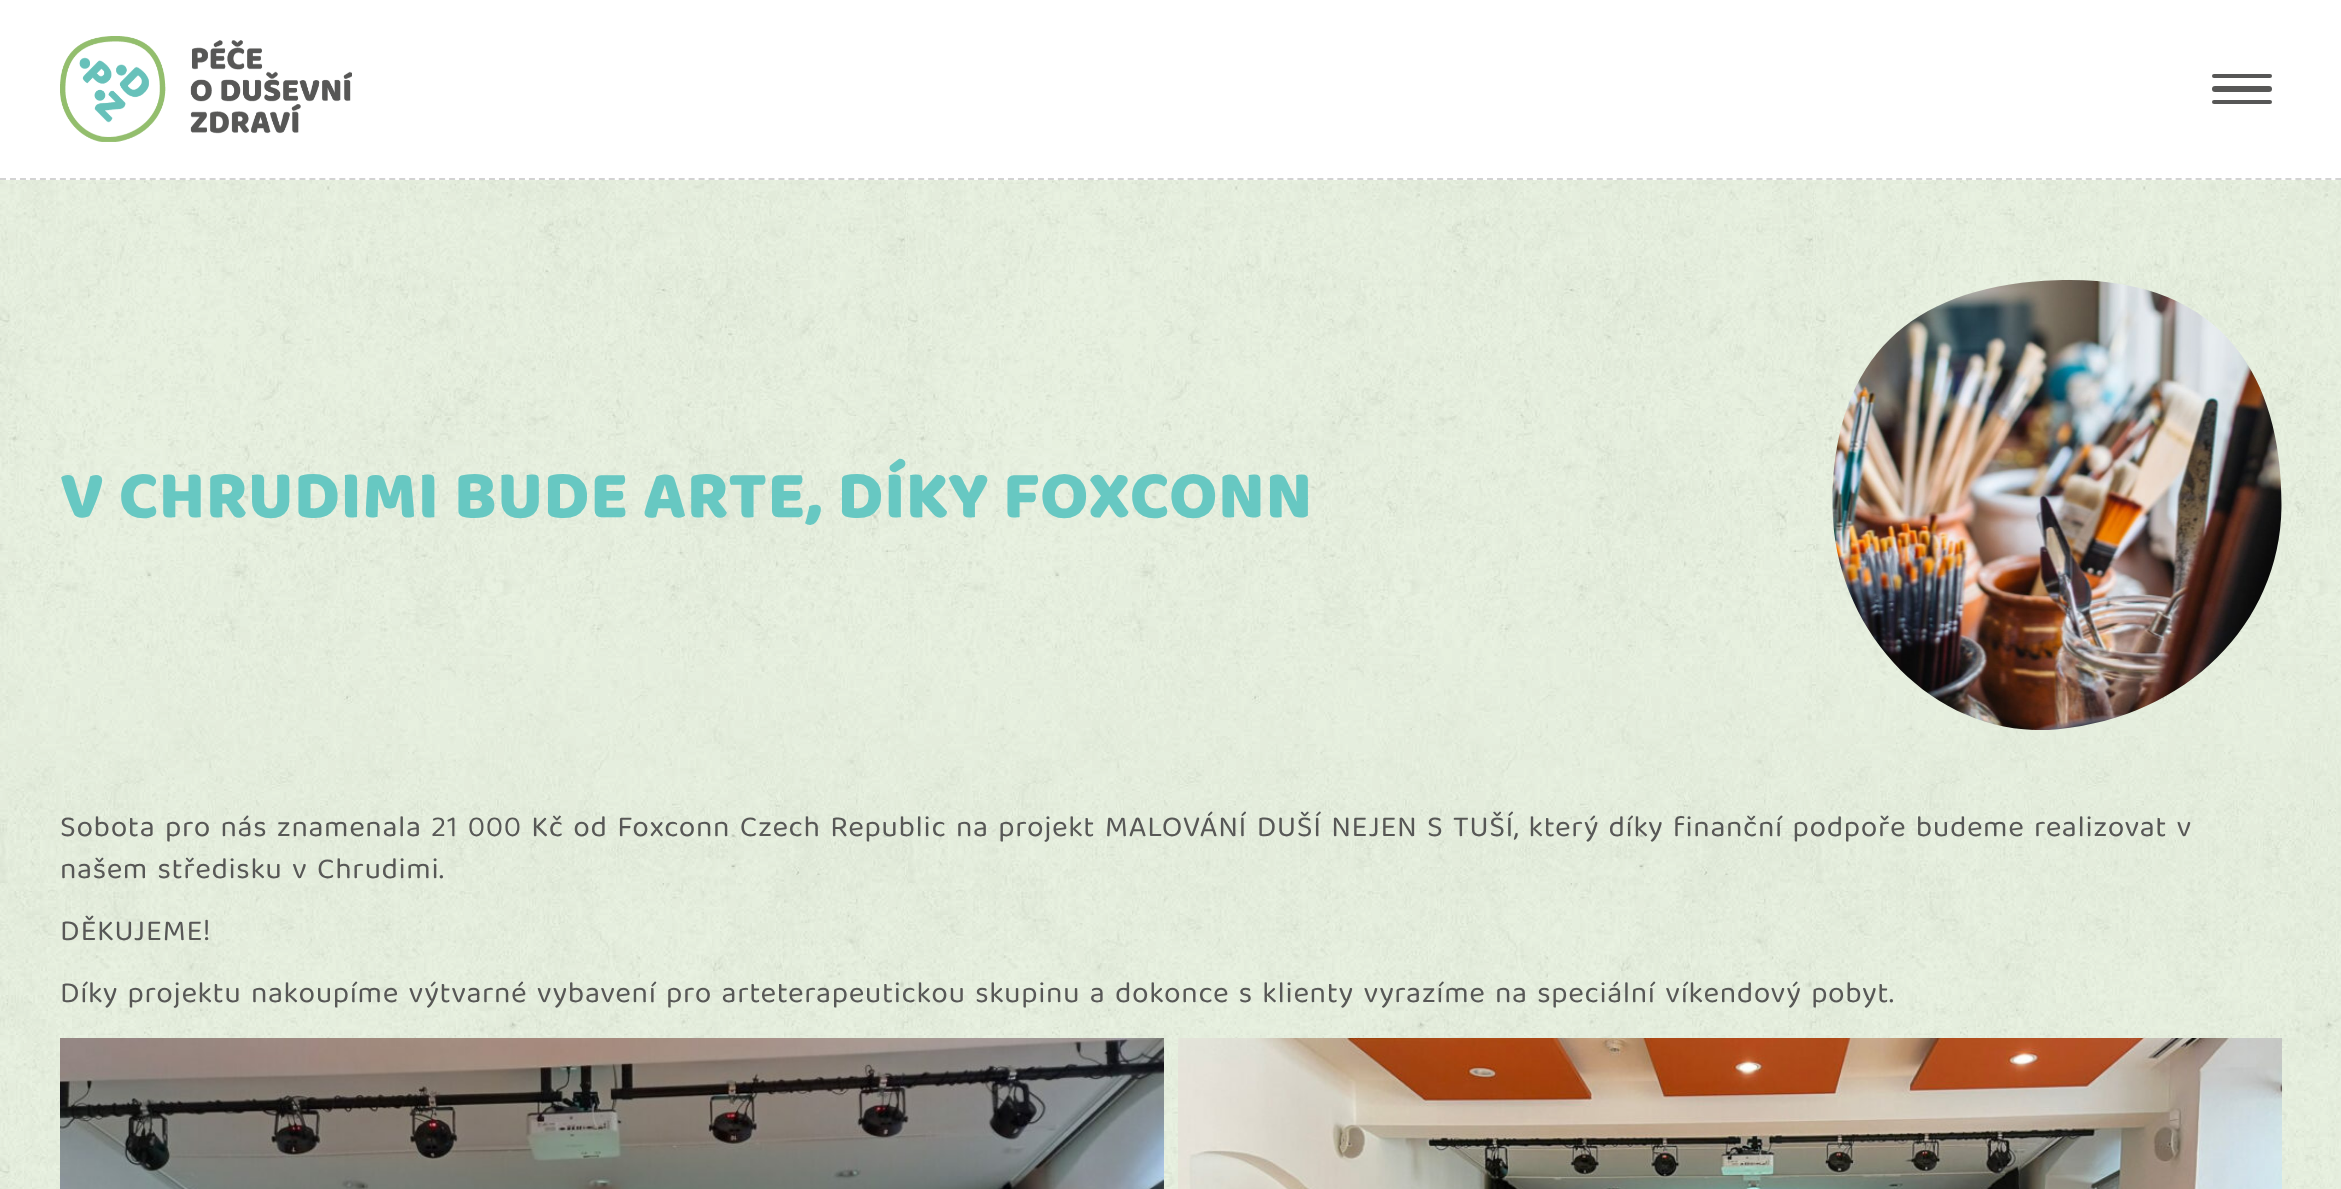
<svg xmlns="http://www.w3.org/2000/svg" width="2341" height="1189">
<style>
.a{font:800 69px 'Baloo Tamma 2';letter-spacing:0.6px;fill:#67c8c2}
.b{font:30px 'Baloo Tamma 2';letter-spacing:0.6px;fill:#575756}
</style>
<rect width="100%" height="100%" fill="#fff"/>
<image href="1.png" x="0" y="180" width="2341" height="1009"/>
<path fill="none" stroke="#d3d3d3" stroke-width="2" stroke-dasharray="6 3.98" d="M0 179h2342"/>
<image href="2.png" x="60" y="36" width="292" height="106"/>
<rect fill="#575756" x="2212" y="74" width="60" height="4" rx="2"/>
<rect fill="#575756" x="2212" y="86" width="60" height="6" rx="3"/>
<rect fill="#575756" x="2212" y="100" width="60" height="4" rx="2"/>
<image href="3.png" x="1832" y="280" width="450" height="450"/>
<image href="4.png" x="60" y="1038" width="1104" height="151"/>
<image href="5.png" x="1178" y="1038" width="1104" height="151"/>
<text class="a" x="60" y="517">V CHRUDIMI BUDE ARTE, DÍKY FOXCONN</text>
<text class="b" x="60" y="836">Sobota pro nás znamenala 21 000 Kč od Foxconn Czech Republic na projekt MALOVÁNÍ DUŠÍ NEJEN S TUŠÍ, který díky finanční podpoře budeme realizovat v</text>
<text class="b" x="60" y="878">našem středisku v Chrudimi.</text>
<text class="b" x="60" y="940">DĚKUJEME!</text>
<text class="b" x="60" y="1002">Díky projektu nakoupíme výtvarné vybavení pro arteterapeutickou skupinu a dokonce s klienty vyrazíme na speciální víkendový pobyt.</text>
</svg>
